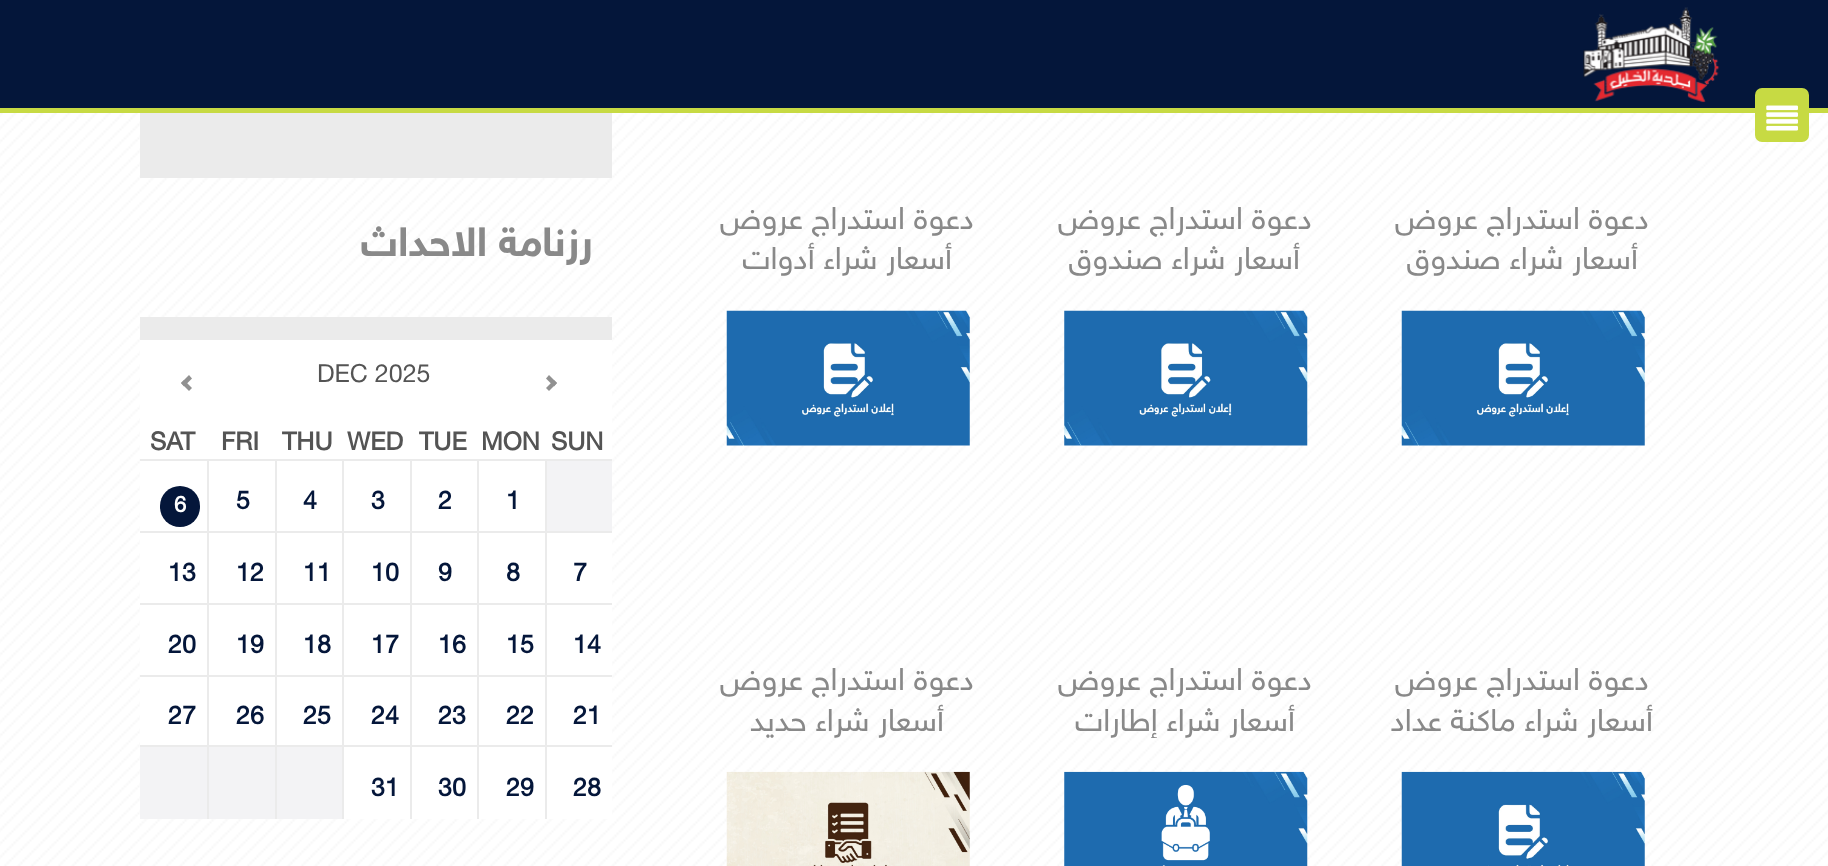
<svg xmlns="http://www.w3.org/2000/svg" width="1828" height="866">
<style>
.a{font:31.5px 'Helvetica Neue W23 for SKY';direction:rtl;fill:#898989}
.b{font:bold 41px 'Helvetica Neue W23 for SKY';direction:rtl;fill:#898989}
.c{font:25px 'Helvetica Neue W23 for SKY';fill:#545454}
.d{font:bold 25px 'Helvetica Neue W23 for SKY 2';fill:#545454}
.e{font:bold 25px 'Helvetica Neue W23 for SKY 2';fill:#04163a}
.f{font:bold 22px 'Helvetica Neue W23 for SKY 2';fill:#fff}
</style>
<defs>
<clipPath id="clip1"><path d="M140 461h472v358H140z"/></clipPath>
<clipPath id="clip2"><path d="M1051 311h270v427H1051z"/></clipPath>
</defs>
<rect width="100%" height="100%" fill="#fff"/>
<image href="1.png" x="0" y="113" width="1828" height="753"/>
<path fill="#04163a" d="M0 0h1828v108H0z"/>
<path fill="#c7da43" d="M0 108h1828v5H0z"/>
<image href="2.png" x="1583" y="7" width="137" height="96"/>
<rect fill="#c7da43" x="1755" y="88" width="54" height="54" rx="7"/>
<image href="3.png" x="1766" y="105" width="32" height="26"/>
<image href="4.png" x="1401" y="310" width="244" height="136"/>
<image href="5.png" x="1064" y="310" width="244" height="136"/>
<image href="6.png" x="726" y="310" width="244" height="136"/>
<image href="7.png" x="1401" y="771" width="244" height="95"/>
<image href="8.png" x="1064" y="771" width="244" height="95"/>
<image href="9.png" x="726" y="771" width="244" height="95"/>
<path fill="#ebebeb" d="M140 113h472v65H140z"/>
<path fill="#ebebeb" d="M140 317h472v23H140z"/>
<path fill="#f3f3f5" d="M547 461h65v70H547z"/>
<path fill="#fff" d="M140 340h472v119H140z"/>
<path fill="#919191" d="M549 375l8 8l-3 3.5l-8-8z"/>
<path fill="#919191" d="M554 380l3 3l-8 8l-3-3z"/>
<path fill="#919191" d="M184 380l8 8l-3 3l-8-8z"/>
<path fill="#919191" d="M189 375l3 3.5l-8 8l-3-3.5z"/>
<path fill="#ebebeb" d="M140 459h472v2H140z"/>
<g clip-path="url(#clip1)">
<path fill="none" stroke="#ebebeb" stroke-width="2" d="M476 460h70v75H476z"/>
</g>
<path fill="#fff" d="M479 461h66v70H479z"/>
<g clip-path="url(#clip1)">
<path fill="none" stroke="#ebebeb" stroke-width="2" d="M408 460h70v75H408z"/>
</g>
<path fill="#fff" d="M412 461h65v70H412z"/>
<g clip-path="url(#clip1)">
<path fill="none" stroke="#ebebeb" stroke-width="2" d="M341 460h70v75H341z"/>
</g>
<path fill="#fff" d="M344 461h66v70H344z"/>
<g clip-path="url(#clip1)">
<path fill="none" stroke="#ebebeb" stroke-width="2" d="M273 460h70v75H273z"/>
</g>
<path fill="#fff" d="M277 461h65v70H277z"/>
<g clip-path="url(#clip1)">
<path fill="none" stroke="#ebebeb" stroke-width="2" d="M206 460h70v75H206z"/>
</g>
<path fill="#fff" d="M209 461h66v70H209z"/>
<g clip-path="url(#clip1)">
<path fill="none" stroke="#ebebeb" stroke-width="2" d="M138 460h70v75H138z"/>
</g>
<path fill="#fff" d="M140 461h67v70H140z"/>
<rect fill="#04163a" x="160" y="486" width="40" height="41" rx="20"/>
<g clip-path="url(#clip1)">
<path fill="none" stroke="#ebebeb" stroke-width="2" d="M543 532h70v75H543z"/>
</g>
<path fill="#fff" d="M547 533h65v70H547z"/>
<path fill="none" stroke="#ebebeb" stroke-width="2" d="M476 532h70v75H476z"/>
<path fill="#fff" d="M479 533h66v70H479z"/>
<path fill="none" stroke="#ebebeb" stroke-width="2" d="M408 532h70v75H408z"/>
<path fill="#fff" d="M412 533h65v70H412z"/>
<path fill="none" stroke="#ebebeb" stroke-width="2" d="M341 532h70v75H341z"/>
<path fill="#fff" d="M344 533h66v70H344z"/>
<path fill="none" stroke="#ebebeb" stroke-width="2" d="M273 532h70v75H273z"/>
<path fill="#fff" d="M277 533h65v70H277z"/>
<path fill="none" stroke="#ebebeb" stroke-width="2" d="M206 532h70v75H206z"/>
<path fill="#fff" d="M209 533h66v70H209z"/>
<g clip-path="url(#clip1)">
<path fill="none" stroke="#ebebeb" stroke-width="2" d="M138 532h70v75H138z"/>
</g>
<path fill="#fff" d="M140 533h67v70H140z"/>
<g clip-path="url(#clip1)">
<path fill="none" stroke="#ebebeb" stroke-width="2" d="M543 604h70v75H543z"/>
</g>
<path fill="#fff" d="M547 605h65v70H547z"/>
<path fill="none" stroke="#ebebeb" stroke-width="2" d="M476 604h70v75H476z"/>
<path fill="#fff" d="M479 605h66v70H479z"/>
<path fill="none" stroke="#ebebeb" stroke-width="2" d="M408 604h70v75H408z"/>
<path fill="#fff" d="M412 605h65v70H412z"/>
<path fill="none" stroke="#ebebeb" stroke-width="2" d="M341 604h70v75H341z"/>
<path fill="#fff" d="M344 605h66v70H344z"/>
<path fill="none" stroke="#ebebeb" stroke-width="2" d="M273 604h70v75H273z"/>
<path fill="#fff" d="M277 605h65v70H277z"/>
<path fill="none" stroke="#ebebeb" stroke-width="2" d="M206 604h70v75H206z"/>
<path fill="#fff" d="M209 605h66v70H209z"/>
<g clip-path="url(#clip1)">
<path fill="none" stroke="#ebebeb" stroke-width="2" d="M138 604h70v75H138z"/>
</g>
<path fill="#fff" d="M140 605h67v70H140z"/>
<g clip-path="url(#clip1)">
<path fill="none" stroke="#ebebeb" stroke-width="2" d="M543 676h70v72H543z"/>
</g>
<path fill="#fff" d="M547 677h65v68H547z"/>
<path fill="none" stroke="#ebebeb" stroke-width="2" d="M476 676h70v72H476z"/>
<path fill="#fff" d="M479 677h66v68H479z"/>
<path fill="none" stroke="#ebebeb" stroke-width="2" d="M408 676h70v72H408z"/>
<path fill="#fff" d="M412 677h65v68H412z"/>
<path fill="none" stroke="#ebebeb" stroke-width="2" d="M341 676h70v72H341z"/>
<path fill="#fff" d="M344 677h66v68H344z"/>
<path fill="none" stroke="#ebebeb" stroke-width="2" d="M273 676h70v72H273z"/>
<path fill="#fff" d="M277 677h65v68H277z"/>
<path fill="none" stroke="#ebebeb" stroke-width="2" d="M206 676h70v72H206z"/>
<path fill="#fff" d="M209 677h66v68H209z"/>
<g clip-path="url(#clip1)">
<path fill="none" stroke="#ebebeb" stroke-width="2" d="M138 676h70v72H138z"/>
</g>
<path fill="#fff" d="M140 677h67v68H140z"/>
<g clip-path="url(#clip1)">
<path fill="none" stroke="#ebebeb" stroke-width="2" d="M543 746h70v74H543z"/>
</g>
<path fill="#fff" d="M547 747h65v72H547z"/>
<g clip-path="url(#clip1)">
<path fill="none" stroke="#ebebeb" stroke-width="2" d="M476 746h70v74H476z"/>
</g>
<path fill="#fff" d="M479 747h66v72H479z"/>
<g clip-path="url(#clip1)">
<path fill="none" stroke="#ebebeb" stroke-width="2" d="M408 746h70v74H408z"/>
</g>
<path fill="#fff" d="M412 747h65v72H412z"/>
<g clip-path="url(#clip1)">
<path fill="none" stroke="#ebebeb" stroke-width="2" d="M341 746h70v74H341z"/>
</g>
<path fill="#fff" d="M344 747h66v72H344z"/>
<g clip-path="url(#clip1)">
<path fill="none" stroke="#ebebeb" stroke-width="2" d="M273 746h70v74H273z"/>
</g>
<path fill="#f3f3f5" d="M277 747h65v72H277z"/>
<g clip-path="url(#clip1)">
<path fill="none" stroke="#ebebeb" stroke-width="2" d="M206 746h70v74H206z"/>
</g>
<path fill="#f3f3f5" d="M209 747h66v72H209z"/>
<g clip-path="url(#clip1)">
<path fill="none" stroke="#ebebeb" stroke-width="2" d="M138 746h70v74H138z"/>
</g>
<path fill="#f3f3f5" d="M140 747h67v72H140z"/>
<text class="a" x="1649" y="229">دعوة استدراج عروض</text>
<text class="a" x="1638" y="269">أسعار شراء صندوق</text>
<text class="a" x="1312" y="229">دعوة استدراج عروض</text>
<text class="a" x="1300" y="269">أسعار شراء صندوق</text>
<text class="a" x="974" y="229">دعوة استدراج عروض</text>
<text class="a" x="952" y="269">أسعار شراء أدوات</text>
<text class="a" x="1649" y="690">دعوة استدراج عروض</text>
<text class="a" x="1653" y="731">أسعار شراء ماكنة عداد</text>
<text class="a" x="1312" y="690">دعوة استدراج عروض</text>
<g clip-path="url(#clip2)">
<text class="a" x="1295" y="731">أسعار شراء إطارات</text>
</g>
<text class="a" x="974" y="690">دعوة استدراج عروض</text>
<text class="a" x="944" y="731">أسعار شراء حديد</text>
<text class="b" x="593" y="256">رزنامة الاحداث</text>
<text class="c" x="317" y="382">DEC 2025</text>
<text class="d" x="551" y="450">SUN</text>
<text class="d" x="481" y="450">MON</text>
<text class="d" x="419" y="450">TUE</text>
<text class="d" x="347" y="450">WED</text>
<text class="d" x="282" y="450">THU</text>
<text class="d" x="221" y="450">FRI</text>
<text class="d" x="150" y="450">SAT</text>
<text class="e" x="506" y="509">1</text>
<text class="e" x="438" y="509">2</text>
<text class="e" x="371" y="509">3</text>
<text class="e" x="303" y="509">4</text>
<text class="e" x="236" y="509">5</text>
<text class="f" x="174" y="512">6</text>
<text class="e" x="573" y="581">7</text>
<text class="e" x="506" y="581">8</text>
<text class="e" x="438" y="581">9</text>
<text class="e" x="371" y="581">10</text>
<text class="e" x="303" y="581">11</text>
<text class="e" x="236" y="581">12</text>
<text class="e" x="168" y="581">13</text>
<text class="e" x="573" y="653">14</text>
<text class="e" x="506" y="653">15</text>
<text class="e" x="438" y="653">16</text>
<text class="e" x="371" y="653">17</text>
<text class="e" x="303" y="653">18</text>
<text class="e" x="236" y="653">19</text>
<text class="e" x="168" y="653">20</text>
<text class="e" x="573" y="724">21</text>
<text class="e" x="506" y="724">22</text>
<text class="e" x="438" y="724">23</text>
<text class="e" x="371" y="724">24</text>
<text class="e" x="303" y="724">25</text>
<text class="e" x="236" y="724">26</text>
<text class="e" x="168" y="724">27</text>
<text class="e" x="573" y="796">28</text>
<text class="e" x="506" y="796">29</text>
<text class="e" x="438" y="796">30</text>
<text class="e" x="371" y="796">31</text>
</svg>
